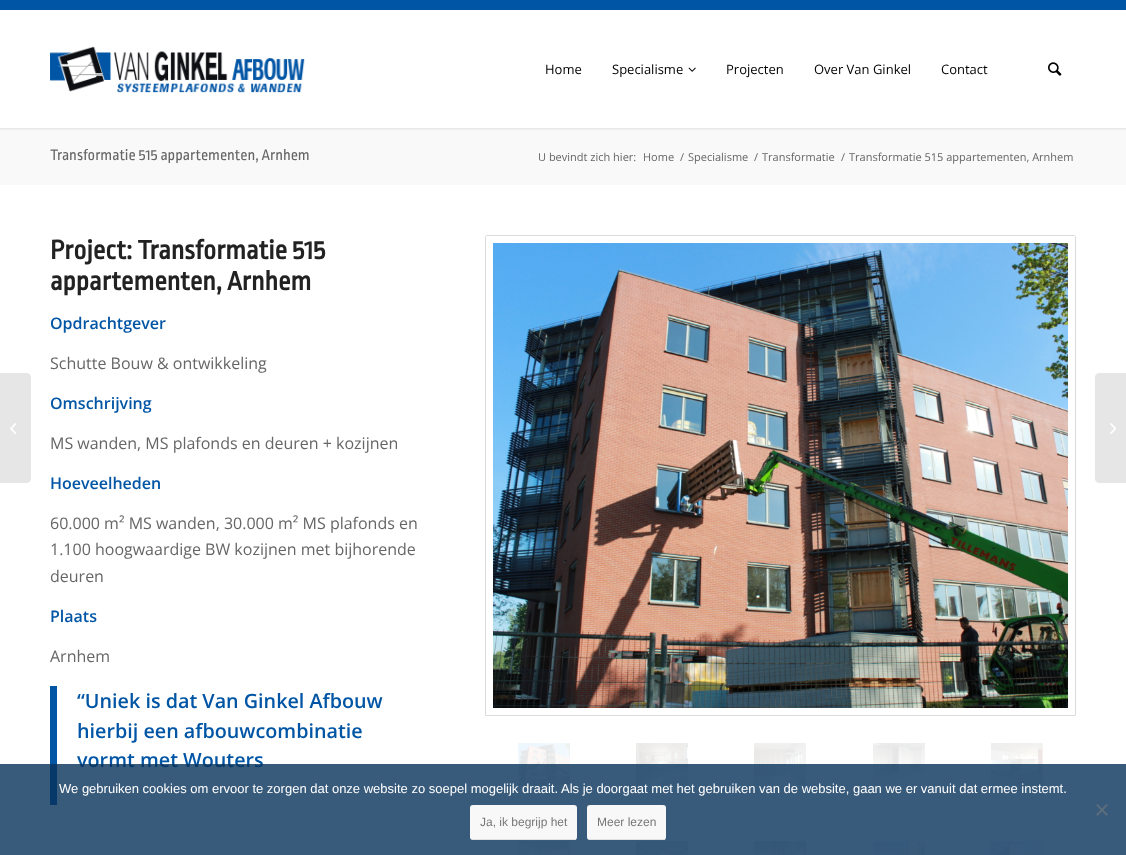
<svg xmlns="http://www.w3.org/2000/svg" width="1126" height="855">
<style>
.a{font:13px Open Sans;fill:#000}
.b{font:16px Ropa Sans;fill:#666}
.c{font:11px Open Sans;fill:#666}
.d{font:bold 28px Ropa Sans;fill:#222}
.e{font:600 16px Open Sans;fill:#0055a5}
.f{font:16px Open Sans;fill:#666}
.g{font:600 19.75px Open Sans;fill:#0055a5}
.h{font:13px Liberation Sans;fill:#fff}
.i{font:12px Liberation Sans;fill:#777}
</style>
<rect width="100%" height="100%" fill="#fff"/>
<path fill="#f9f9f9" d="M0 128h1126v57H0z"/>
<path fill="#0000001a" filter="blur(1px)" d="M-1 -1h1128v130H-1z"/>
<path fill="#0055a5" d="M0 0h1126v10H0z"/>
<path fill="#fff" d="M0 10h1126v118H0z"/>
<image href="1.png" x="50" y="46" width="255" height="47"/>
<image href="2.png" x="688" y="67" width="8" height="5"/>
<image href="3.png" x="1048" y="62" width="14" height="14"/>
<path fill="#e6e6e6" d="M0 373h27c2 0 4 2 4 4v102c0 2-2 4-4 4h-27z"/>
<image href="4.png" x="10" y="423" width="7" height="11"/>
<path fill="#0055a5" d="M50 686h7v119H50z"/>
<path fill="none" stroke="#dbdbdb" d="M487 235.5h587c1 0 1.5 .5 1.5 1.5v478.5h-590v-478.5c0-1 .5-1.5 1.5-1.5z"/>
<image href="5.png" x="493" y="243" width="575" height="465"/>
<image href="6.png" x="518" y="743" width="52" height="42"/>
<image href="7.png" x="636" y="743" width="52" height="42"/>
<image href="8.png" x="754" y="743" width="52" height="42"/>
<image href="9.png" x="873" y="743" width="52" height="42"/>
<image href="10.png" x="991" y="743" width="52" height="42"/>
<image href="11.png" x="518" y="841" width="52" height="14"/>
<image href="12.png" x="636" y="841" width="52" height="14"/>
<image href="13.png" x="754" y="841" width="52" height="14"/>
<image href="14.png" x="873" y="841" width="52" height="14"/>
<image href="15.png" x="991" y="841" width="52" height="14"/>
<path fill="#e6e6e6" d="M1099 373h27v110h-27c-2 0-4-2-4-4v-102c0-2 2-4 4-4z"/>
<image href="16.png" x="1110" y="423" width="7" height="11"/>
<text class="a" x="545" y="74">Home</text>
<text class="a" x="612" y="74">Specialisme</text>
<text class="a" x="726" y="74">Projecten</text>
<text class="a" x="814" y="74">Over Van Ginkel</text>
<text class="a" x="941" y="74">Contact</text>
<text class="b" x="50" y="160">Transformatie 515 appartementen, Arnhem</text>
<text class="c" x="538" y="161">U bevindt zich hier:</text>
<text class="c" x="643" y="161">Home</text>
<text class="c" x="680" y="161">/</text>
<text class="c" x="688" y="161">Specialisme</text>
<text class="c" x="754" y="161">/</text>
<text class="c" x="762" y="161">Transformatie</text>
<text class="c" x="841" y="161">/</text>
<text class="c" x="849" y="161">Transformatie 515 appartementen, Arnhem</text>
<text class="d" x="50" y="259">Project: Transformatie 515</text>
<text class="d" x="50" y="290">appartementen, Arnhem</text>
<text class="e" x="50" y="329">Opdrachtgever</text>
<text class="f" x="50" y="369">Schutte Bouw &amp; ontwikkeling</text>
<text class="e" x="50" y="409">Omschrijving</text>
<text class="f" x="50" y="449">MS wanden, MS plafonds en deuren + kozijnen</text>
<text class="e" x="50" y="489">Hoeveelheden</text>
<text class="f" x="50" y="529">60.000 m² MS wanden, 30.000 m² MS plafonds en</text>
<text class="f" x="50" y="555">1.100 hoogwaardige BW kozijnen met bijhorende</text>
<text class="f" x="50" y="582">deuren</text>
<text class="e" x="50" y="622">Plaats</text>
<text class="f" x="50" y="662">Arnhem</text>
<text class="g" x="77" y="708">“Uniek is dat Van Ginkel Afbouw</text>
<text class="g" x="77" y="738">hierbij een afbouwcombinatie</text>
<text class="g" x="77" y="767">vormt met Wouters</text>
<path fill="#07325acc" d="M0 764h1126v91H0z"/>
<text class="h" x="59" y="793">We gebruiken cookies om ervoor te zorgen dat onze website zo soepel mogelijk draait. Als je doorgaat met het gebruiken van de website, gaan we er vanuit dat ermee instemt.</text>
<path fill="#5c6e7e" d="M1106.5 804l1.5 1l-10.5 11l-1.5-1.5z"/>
<path fill="#5c6e7e" d="M1096 805l1.5-1l10.5 10.5l-1.5 1.5z"/>
<rect fill="#f8f8f8" x="470" y="805" width="107" height="35" rx="3"/>
<path fill="#e1e1e1" d="M472 839h104v1H472z"/>
<text class="i" x="480" y="826">Ja, ik begrijp het</text>
<rect fill="#f8f8f8" x="587" y="805" width="79" height="35" rx="3"/>
<path fill="#e1e1e1" d="M589 839h76v1H589z"/>
<text class="i" x="597" y="826">Meer lezen</text>
</svg>
